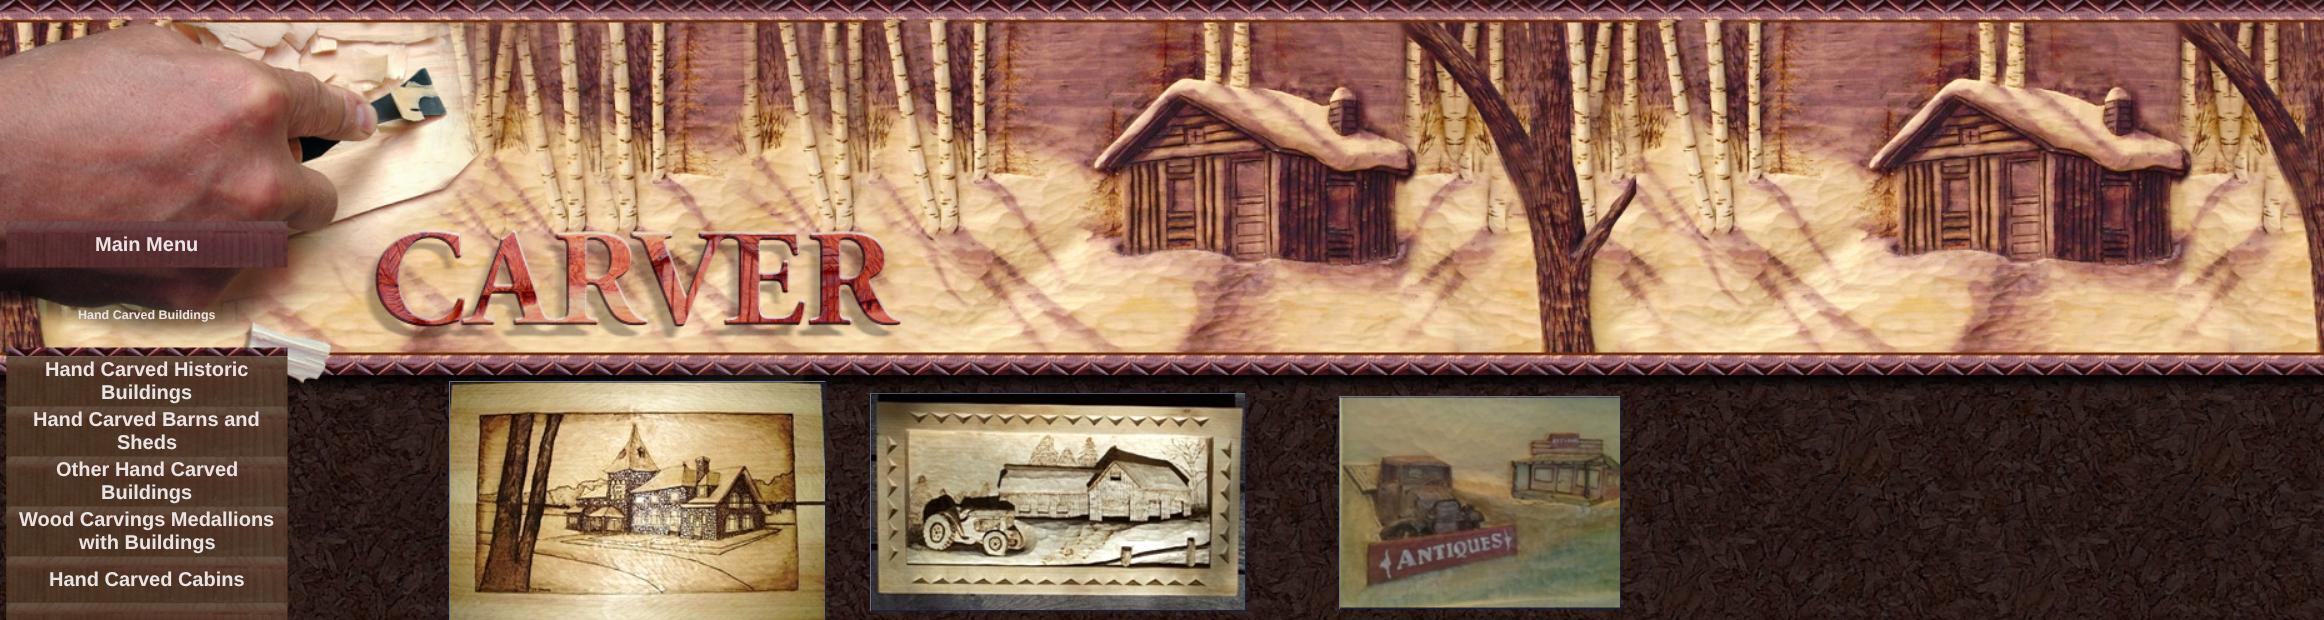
<svg xmlns="http://www.w3.org/2000/svg" width="2324" height="620">
<style>
.a{font:bold 20px Liberation Sans;fill:#eae3e3}
.b{font:bold 12.5px Liberation Sans;fill:#eae3e3}
</style>
<rect width="100%" height="100%" fill="#fff"/>
<image href="1.png" x="0" y="400" width="2324" height="220"/>
<image href="3.png" x="937" y="0" width="1387" height="400"/>
<image href="2.png" x="0" y="0" width="938" height="400"/>
<image href="4.png" x="6" y="221" width="282" height="47"/>
<image href="5.png" x="6" y="347" width="282" height="10"/>
<image href="6.png" x="6" y="356" width="282" height="51"/>
<image href="7.png" x="6" y="406" width="282" height="51"/>
<image href="8.png" x="6" y="456" width="282" height="51"/>
<image href="9.png" x="6" y="506" width="282" height="51"/>
<image href="10.png" x="6" y="556" width="282" height="47"/>
<image href="11.png" x="6" y="602" width="282" height="18"/>
<path fill="#657396" d="M449 381h377v1H449z"/>
<path fill="#0f2251" d="M825 381h1v239H825z"/>
<path fill="#657396" d="M449 381h1v239H449z"/>
<image href="12.png" x="450" y="382" width="375" height="238"/>
<path fill="#657396" d="M870 393h376v1H870z"/>
<path fill="#0f2251" d="M1245 393h1v218H1245z"/>
<path fill="#0f2251" d="M870 610h376v1H870z"/>
<path fill="#657396" d="M870 393h1v218H870z"/>
<image href="13.png" x="871" y="393" width="374" height="217"/>
<path fill="#657396" d="M1339 396h282v1H1339z"/>
<path fill="#0f2251" d="M1620 396h1v213H1620z"/>
<path fill="#0f2251" d="M1339 608h282v1H1339z"/>
<path fill="#657396" d="M1339 396h1v213H1339z"/>
<image href="14.png" x="1340" y="397" width="280" height="211"/>
<text class="a" x="95" y="251">Main Menu</text>
<text class="b" x="78" y="319">Hand Carved Buildings</text>
<text class="a" x="45" y="376">Hand Carved Historic</text>
<text class="a" x="101" y="399">Buildings</text>
<text class="a" x="33" y="426">Hand Carved Barns and</text>
<text class="a" x="117" y="449">Sheds</text>
<text class="a" x="56" y="476">Other Hand Carved</text>
<text class="a" x="101" y="499">Buildings</text>
<text class="a" x="19" y="526">Wood Carvings Medallions</text>
<text class="a" x="79" y="549">with Buildings</text>
<text class="a" x="49" y="586">Hand Carved Cabins</text>
</svg>
